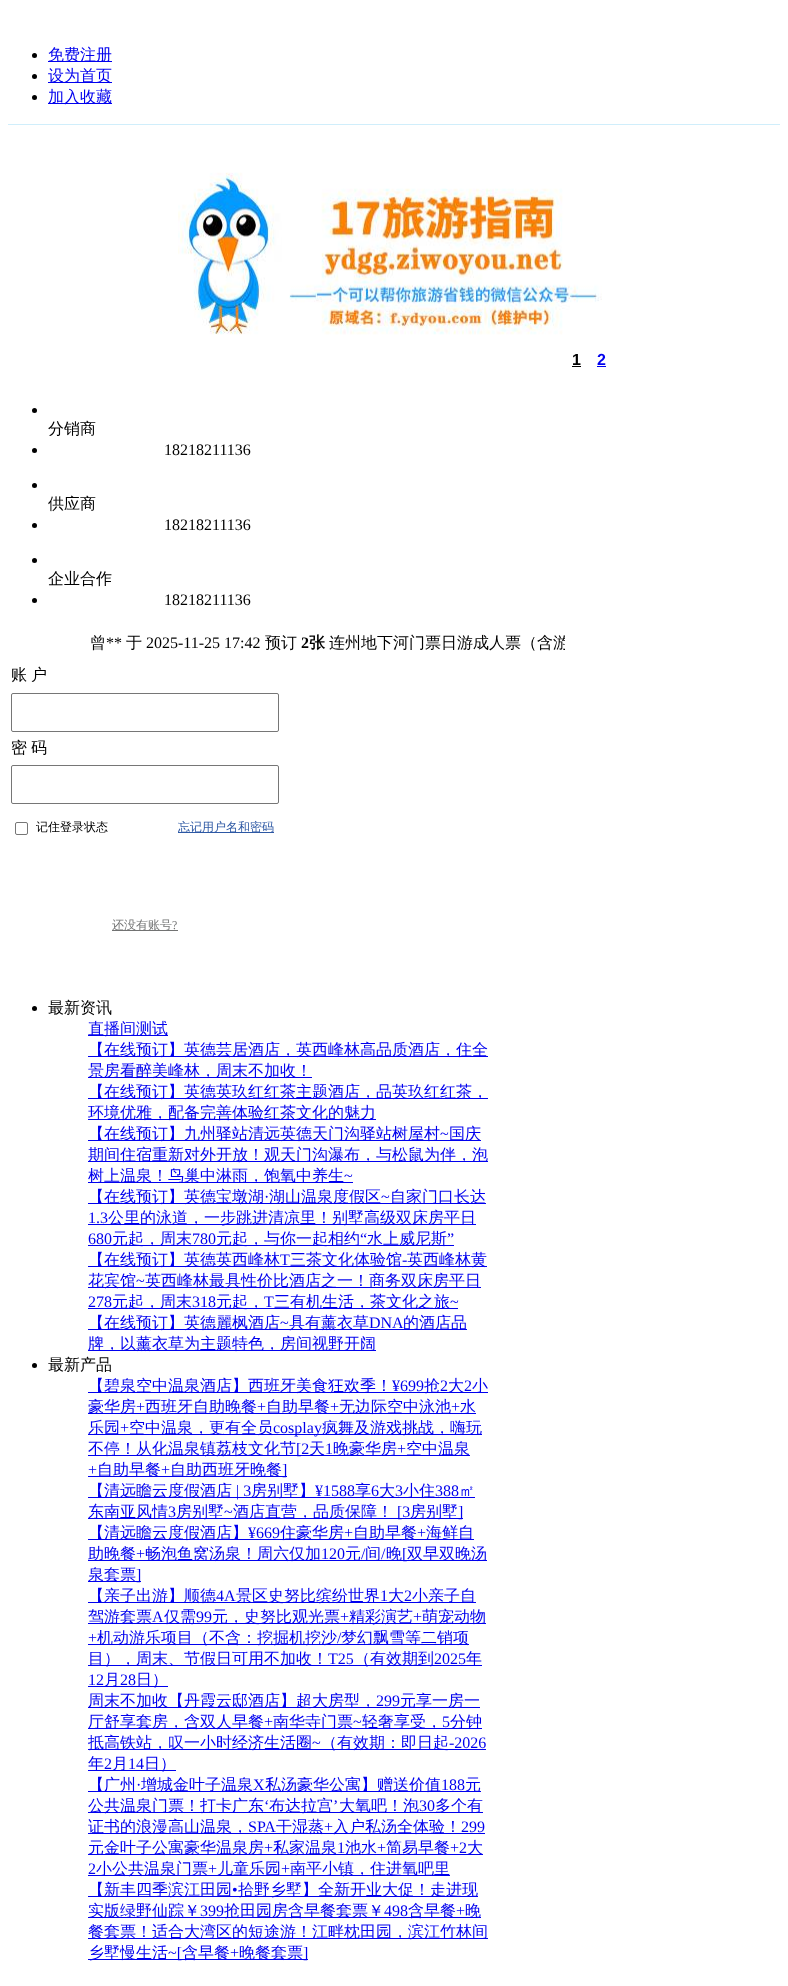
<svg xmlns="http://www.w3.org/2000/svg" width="788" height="1986">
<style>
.a{font:500 16px WenQuanYi Zen Hei;fill:#00e}
.b{font:bold 16px Liberation Sans;fill:#000}
.c{font:bold 16px Liberation Sans;fill:#00e}
.d{font:500 16px WenQuanYi Zen Hei;fill:#000}
.e{font:16px Liberation Serif;fill:#000}
.f{font:bold 16px Liberation Serif;fill:#000}
.g{font:bold 16px WenQuanYi Zen Hei;fill:#000}
.h{font:500 12px WenQuanYi Zen Hei;fill:#000}
.i{font:500 12px WenQuanYi Zen Hei;fill:#2d58a4}
.j{font:500 12px WenQuanYi Zen Hei;fill:#727373}
.k{font:12px Liberation Serif;fill:#727373}
.l{font:16px Liberation Serif;fill:#00e}
</style>
<defs>
<clipPath id="clip1"><path d="M90 629h475v28H90z"/></clipPath>
</defs>
<rect width="100%" height="100%" fill="#fff"/>
<path fill="#d0eefb" d="M8 124h772v1H8z"/>
<circle fill="#000" cx="34.5" cy="55.5" r="2.5"/>
<path fill="#00e" d="M48 61h64v1H48z"/>
<circle fill="#000" cx="34.5" cy="76.5" r="2.5"/>
<path fill="#00e" d="M48 82h64v1H48z"/>
<circle fill="#000" cx="34.5" cy="97.5" r="2.5"/>
<path fill="#00e" d="M48 103h64v1H48z"/>
<image href="1.png" x="178" y="172" width="424" height="163"/>
<path fill="#000" d="M572 366h9v1H572z"/>
<path fill="#00e" d="M597 366h9v1H597z"/>
<circle fill="#000" cx="34.5" cy="410.5" r="2.5"/>
<circle fill="#000" cx="34.5" cy="450.5" r="2.5"/>
<circle fill="#000" cx="34.5" cy="485.5" r="2.5"/>
<circle fill="#000" cx="34.5" cy="525.5" r="2.5"/>
<circle fill="#000" cx="34.5" cy="560.5" r="2.5"/>
<circle fill="#000" cx="34.5" cy="600.5" r="2.5"/>
<rect fill="none" stroke="#767676" x="11.5" y="693.5" width="267" height="38" rx="1.5"/>
<rect fill="none" stroke="#767676" x="11.5" y="765.5" width="267" height="38" rx="1.5"/>
<rect fill="none" stroke="#767676" x="15.5" y="822.5" width="12" height="12" rx="1.5"/>
<path fill="#2d58a4" d="M178 832h96v1H178z"/>
<path fill="#727373" d="M112 930h66v1H112z"/>
<circle fill="#000" cx="34.5" cy="1008.5" r="2.5"/>
<path fill="#00e" d="M88 1035h80v1H88z"/>
<path fill="#00e" d="M88 1056h400v1H88z"/>
<path fill="#00e" d="M88 1077h224v1H88z"/>
<path fill="#00e" d="M88 1098h400v1H88z"/>
<path fill="#00e" d="M88 1119h288v1H88z"/>
<path fill="#00e" d="M88 1140h393v1H88z"/>
<path fill="#00e" d="M88 1161h400v1H88z"/>
<path fill="#00e" d="M88 1182h265v1H88z"/>
<path fill="#00e" d="M88 1203h398v1H88z"/>
<path fill="#00e" d="M88 1224h388v1H88z"/>
<path fill="#00e" d="M88 1245h366v1H88z"/>
<path fill="#00e" d="M88 1266h399v1H88z"/>
<path fill="#00e" d="M88 1287h393v1H88z"/>
<path fill="#00e" d="M88 1308h370v1H88z"/>
<path fill="#00e" d="M88 1329h379v1H88z"/>
<path fill="#00e" d="M88 1350h288v1H88z"/>
<circle fill="#000" cx="34.5" cy="1365.5" r="2.5"/>
<path fill="#00e" d="M88 1392h400v1H88z"/>
<path fill="#00e" d="M88 1413h388v1H88z"/>
<path fill="#00e" d="M88 1434h394v1H88z"/>
<path fill="#00e" d="M88 1455h382v1H88z"/>
<path fill="#00e" d="M88 1476h199v1H88z"/>
<path fill="#00e" d="M88 1497h387v1H88z"/>
<path fill="#00e" d="M88 1518h375v1H88z"/>
<path fill="#00e" d="M88 1539h386v1H88z"/>
<path fill="#00e" d="M88 1560h399v1H88z"/>
<path fill="#00e" d="M88 1581h53v1H88z"/>
<path fill="#00e" d="M88 1602h388v1H88z"/>
<path fill="#00e" d="M88 1623h398v1H88z"/>
<path fill="#00e" d="M88 1644h381v1H88z"/>
<path fill="#00e" d="M88 1665h394v1H88z"/>
<path fill="#00e" d="M88 1686h80v1H88z"/>
<path fill="#00e" d="M88 1707h392v1H88z"/>
<path fill="#00e" d="M88 1728h394v1H88z"/>
<path fill="#00e" d="M88 1749h398v1H88z"/>
<path fill="#00e" d="M88 1770h88v1H88z"/>
<path fill="#00e" d="M88 1791h393v1H88z"/>
<path fill="#00e" d="M88 1812h395v1H88z"/>
<path fill="#00e" d="M88 1833h397v1H88z"/>
<path fill="#00e" d="M88 1854h395v1H88z"/>
<path fill="#00e" d="M88 1875h362v1H88z"/>
<path fill="#00e" d="M88 1896h390v1H88z"/>
<path fill="#00e" d="M88 1917h393v1H88z"/>
<path fill="#00e" d="M88 1938h400v1H88z"/>
<path fill="#00e" d="M88 1959h220v1H88z"/>
<text class="a" x="48" y="60">免费注册</text>
<text class="a" x="48" y="81">设为首页</text>
<text class="a" x="48" y="102">加入收藏</text>
<text class="b" x="572" y="365">1</text>
<text class="c" x="597" y="365">2</text>
<text class="d" x="48" y="434">分销商</text>
<text class="e" x="164" y="455">18218211136</text>
<text class="d" x="48" y="509">供应商</text>
<text class="e" x="164" y="530">18218211136</text>
<text class="d" x="48" y="584">企业合作</text>
<text class="e" x="164" y="605">18218211136</text>
<text class="d" x="90" y="648">曾</text>
<text class="e" x="106" y="648">**</text>
<text class="d" x="126" y="648">于</text>
<text class="e" x="146" y="648">2025-11-25 17:42</text>
<text class="d" x="265" y="648">预订</text>
<text class="f" x="301" y="648">2</text>
<text class="g" x="309" y="648">张</text>
<g clip-path="url(#clip1)">
<text class="d" x="329" y="648">连州地下河门票日游成人票（含游</text>
</g>
<text class="d" x="11" y="680">账</text>
<text class="d" x="31" y="680">户</text>
<text class="d" x="11" y="753">密</text>
<text class="d" x="31" y="753">码</text>
<text class="h" x="36" y="831">记住登录状态</text>
<text class="i" x="178" y="831">忘记用户名和密码</text>
<text class="j" x="112" y="929">还没有账号</text>
<text class="k" x="172" y="929">?</text>
<text class="d" x="48" y="1013">最新资讯</text>
<text class="a" x="88" y="1034">直播间测试</text>
<text class="a" x="88" y="1055">【在线预订】英德芸居酒店，英西峰林高品质酒店，住全</text>
<text class="a" x="88" y="1076">景房看醉美峰林，周末不加收！</text>
<text class="a" x="88" y="1097">【在线预订】英德英玖红红茶主题酒店，品英玖红红茶，</text>
<text class="a" x="88" y="1118">环境优雅，配备完善体验红茶文化的魅力</text>
<text class="a" x="88" y="1139">【在线预订】九州驿站清远英德天门沟驿站树屋村</text>
<text class="l" x="440" y="1139">~</text>
<text class="a" x="449" y="1139">国庆</text>
<text class="a" x="88" y="1160">期间住宿重新对外开放！观天门沟瀑布，与松鼠为伴，泡</text>
<text class="a" x="88" y="1181">树上温泉！鸟巢中淋雨，饱氧中养生</text>
<text class="l" x="344" y="1181">~</text>
<text class="a" x="88" y="1202">【在线预订】英德宝墩湖</text>
<text class="l" x="264" y="1202">·</text>
<text class="a" x="269" y="1202">湖山温泉度假区</text>
<text class="l" x="381" y="1202">~</text>
<text class="a" x="390" y="1202">自家门口长达</text>
<text class="l" x="88" y="1223">1.3</text>
<text class="a" x="108" y="1223">公里的泳道，一步跳进清凉里！别墅高级双床房平日</text>
<text class="l" x="88" y="1244">680</text>
<text class="a" x="112" y="1244">元起，周末</text>
<text class="l" x="192" y="1244">780</text>
<text class="a" x="216" y="1244">元起，与你一起相约</text>
<text class="l" x="360" y="1244">“</text>
<text class="a" x="367" y="1244">水上威尼斯</text>
<text class="l" x="447" y="1244">”</text>
<text class="a" x="88" y="1265">【在线预订】英德英西峰林</text>
<text class="l" x="280" y="1265">T</text>
<text class="a" x="290" y="1265">三茶文化体验馆</text>
<text class="l" x="402" y="1265">-</text>
<text class="a" x="407" y="1265">英西峰林黄</text>
<text class="a" x="88" y="1286">花宾馆</text>
<text class="l" x="136" y="1286">~</text>
<text class="a" x="145" y="1286">英西峰林最具性价比酒店之一！商务双床房平日</text>
<text class="l" x="88" y="1307">278</text>
<text class="a" x="112" y="1307">元起，周末</text>
<text class="l" x="192" y="1307">318</text>
<text class="a" x="216" y="1307">元起，</text>
<text class="l" x="264" y="1307">T</text>
<text class="a" x="274" y="1307">三有机生活，茶文化之旅</text>
<text class="l" x="450" y="1307">~</text>
<text class="a" x="88" y="1328">【在线预订】英德麗枫酒店</text>
<text class="l" x="280" y="1328">~</text>
<text class="a" x="289" y="1328">具有薰衣草</text>
<text class="l" x="369" y="1328">DNA</text>
<text class="a" x="403" y="1328">的酒店品</text>
<text class="a" x="88" y="1349">牌，以薰衣草为主题特色，房间视野开阔</text>
<text class="d" x="48" y="1370">最新产品</text>
<text class="a" x="88" y="1391">【碧泉空中温泉酒店】西班牙美食狂欢季！</text>
<text class="l" x="392" y="1391">¥699</text>
<text class="a" x="424" y="1391">抢</text>
<text class="l" x="440" y="1391">2</text>
<text class="a" x="448" y="1391">大</text>
<text class="l" x="464" y="1391">2</text>
<text class="a" x="472" y="1391">小</text>
<text class="a" x="88" y="1412">豪华房</text>
<text class="l" x="136" y="1412">+</text>
<text class="a" x="145" y="1412">西班牙自助晚餐</text>
<text class="l" x="257" y="1412">+</text>
<text class="a" x="266" y="1412">自助早餐</text>
<text class="l" x="330" y="1412">+</text>
<text class="a" x="339" y="1412">无边际空中泳池</text>
<text class="l" x="451" y="1412">+</text>
<text class="a" x="460" y="1412">水</text>
<text class="a" x="88" y="1433">乐园</text>
<text class="l" x="120" y="1433">+</text>
<text class="a" x="129" y="1433">空中温泉，更有全员</text>
<text class="l" x="273" y="1433">cosplay</text>
<text class="a" x="322" y="1433">疯舞及游戏挑战，嗨玩</text>
<text class="a" x="88" y="1454">不停！从化温泉镇荔枝文化节</text>
<text class="l" x="296" y="1454">[2</text>
<text class="a" x="309" y="1454">天</text>
<text class="l" x="325" y="1454">1</text>
<text class="a" x="333" y="1454">晚豪华房</text>
<text class="l" x="397" y="1454">+</text>
<text class="a" x="406" y="1454">空中温泉</text>
<text class="l" x="88" y="1475">+</text>
<text class="a" x="97" y="1475">自助早餐</text>
<text class="l" x="161" y="1475">+</text>
<text class="a" x="170" y="1475">自助西班牙晚餐</text>
<text class="l" x="282" y="1475">]</text>
<text class="a" x="88" y="1496">【清远瞻云度假酒店</text>
<text class="l" x="236" y="1496">| 3</text>
<text class="a" x="251" y="1496">房别墅】</text>
<text class="l" x="315" y="1496">¥1588</text>
<text class="a" x="355" y="1496">享</text>
<text class="l" x="371" y="1496">6</text>
<text class="a" x="379" y="1496">大</text>
<text class="l" x="395" y="1496">3</text>
<text class="a" x="403" y="1496">小住</text>
<text class="l" x="435" y="1496">388</text>
<text class="a" x="459" y="1496">㎡</text>
<text class="a" x="88" y="1517">东南亚风情</text>
<text class="l" x="168" y="1517">3</text>
<text class="a" x="176" y="1517">房别墅</text>
<text class="l" x="224" y="1517">~</text>
<text class="a" x="233" y="1517">酒店直营，品质保障！</text>
<text class="l" x="397" y="1517">[3</text>
<text class="a" x="410" y="1517">房别墅</text>
<text class="l" x="458" y="1517">]</text>
<text class="a" x="88" y="1538">【清远瞻云度假酒店】</text>
<text class="l" x="248" y="1538">¥669</text>
<text class="a" x="280" y="1538">住豪华房</text>
<text class="l" x="344" y="1538">+</text>
<text class="a" x="353" y="1538">自助早餐</text>
<text class="l" x="417" y="1538">+</text>
<text class="a" x="426" y="1538">海鲜自</text>
<text class="a" x="88" y="1559">助晚餐</text>
<text class="l" x="136" y="1559">+</text>
<text class="a" x="145" y="1559">畅泡鱼窝汤泉！周六仅加</text>
<text class="l" x="321" y="1559">120</text>
<text class="a" x="345" y="1559">元</text>
<text class="l" x="361" y="1559">/</text>
<text class="a" x="365" y="1559">间</text>
<text class="l" x="381" y="1559">/</text>
<text class="a" x="386" y="1559">晚</text>
<text class="l" x="402" y="1559">[</text>
<text class="a" x="407" y="1559">双早双晚汤</text>
<text class="a" x="88" y="1580">泉套票</text>
<text class="l" x="136" y="1580">]</text>
<text class="a" x="88" y="1601">【亲子出游】顺德</text>
<text class="l" x="216" y="1601">4A</text>
<text class="a" x="236" y="1601">景区史努比缤纷世界</text>
<text class="l" x="380" y="1601">1</text>
<text class="a" x="388" y="1601">大</text>
<text class="l" x="404" y="1601">2</text>
<text class="a" x="412" y="1601">小亲子自</text>
<text class="a" x="88" y="1622">驾游套票</text>
<text class="l" x="152" y="1622">A</text>
<text class="a" x="164" y="1622">仅需</text>
<text class="l" x="196" y="1622">99</text>
<text class="a" x="212" y="1622">元，史努比观光票</text>
<text class="l" x="340" y="1622">+</text>
<text class="a" x="349" y="1622">精彩演艺</text>
<text class="l" x="413" y="1622">+</text>
<text class="a" x="422" y="1622">萌宠动物</text>
<text class="l" x="88" y="1643">+</text>
<text class="a" x="97" y="1643">机动游乐项目（不含：挖掘机挖沙</text>
<text class="l" x="337" y="1643">/</text>
<text class="a" x="341" y="1643">梦幻飘雪等二销项</text>
<text class="a" x="88" y="1664">目），周末、节假日可用不加收！</text>
<text class="l" x="328" y="1664">T25</text>
<text class="a" x="354" y="1664">（有效期到</text>
<text class="l" x="434" y="1664">2025</text>
<text class="a" x="466" y="1664">年</text>
<text class="l" x="88" y="1685">12</text>
<text class="a" x="104" y="1685">月</text>
<text class="l" x="120" y="1685">28</text>
<text class="a" x="136" y="1685">日）</text>
<text class="a" x="88" y="1706">周末不加收【丹霞云邸酒店】超大房型，</text>
<text class="l" x="376" y="1706">299</text>
<text class="a" x="400" y="1706">元享一房一</text>
<text class="a" x="88" y="1727">厅舒享套房，含双人早餐</text>
<text class="l" x="264" y="1727">+</text>
<text class="a" x="273" y="1727">南华寺门票</text>
<text class="l" x="353" y="1727">~</text>
<text class="a" x="362" y="1727">轻奢享受，</text>
<text class="l" x="442" y="1727">5</text>
<text class="a" x="450" y="1727">分钟</text>
<text class="a" x="88" y="1748">抵高铁站，叹一小时经济生活圈</text>
<text class="l" x="312" y="1748">~</text>
<text class="a" x="321" y="1748">（有效期：即日起</text>
<text class="l" x="449" y="1748">-2026</text>
<text class="a" x="88" y="1769">年</text>
<text class="l" x="104" y="1769">2</text>
<text class="a" x="112" y="1769">月</text>
<text class="l" x="128" y="1769">14</text>
<text class="a" x="144" y="1769">日）</text>
<text class="a" x="88" y="1790">【广州</text>
<text class="l" x="136" y="1790">·</text>
<text class="a" x="141" y="1790">增城金叶子温泉</text>
<text class="l" x="253" y="1790">X</text>
<text class="a" x="265" y="1790">私汤豪华公寓】赠送价值</text>
<text class="l" x="441" y="1790">188</text>
<text class="a" x="465" y="1790">元</text>
<text class="a" x="88" y="1811">公共温泉门票！打卡广东</text>
<text class="l" x="264" y="1811">‘</text>
<text class="a" x="269" y="1811">布达拉宫</text>
<text class="l" x="333" y="1811">’</text>
<text class="a" x="339" y="1811">大氧吧！泡</text>
<text class="l" x="419" y="1811">30</text>
<text class="a" x="435" y="1811">多个有</text>
<text class="a" x="88" y="1832">证书的浪漫高山温泉，</text>
<text class="l" x="248" y="1832">SPA</text>
<text class="a" x="276" y="1832">干湿蒸</text>
<text class="l" x="324" y="1832">+</text>
<text class="a" x="333" y="1832">入户私汤全体验！</text>
<text class="l" x="461" y="1832">299</text>
<text class="a" x="88" y="1853">元金叶子公寓豪华温泉房</text>
<text class="l" x="264" y="1853">+</text>
<text class="a" x="273" y="1853">私家温泉</text>
<text class="l" x="337" y="1853">1</text>
<text class="a" x="345" y="1853">池水</text>
<text class="l" x="377" y="1853">+</text>
<text class="a" x="386" y="1853">简易早餐</text>
<text class="l" x="450" y="1853">+2</text>
<text class="a" x="467" y="1853">大</text>
<text class="l" x="88" y="1874">2</text>
<text class="a" x="96" y="1874">小公共温泉门票</text>
<text class="l" x="208" y="1874">+</text>
<text class="a" x="217" y="1874">儿童乐园</text>
<text class="l" x="281" y="1874">+</text>
<text class="a" x="290" y="1874">南平小镇，住进氧吧里</text>
<text class="a" x="88" y="1895">【新丰四季滨江田园</text>
<text class="l" x="232" y="1895">•</text>
<text class="a" x="238" y="1895">拾野乡墅】全新开业大促！走进现</text>
<text class="a" x="88" y="1916">实版绿野仙踪￥</text>
<text class="l" x="200" y="1916">399</text>
<text class="a" x="224" y="1916">抢田园房含早餐套票￥</text>
<text class="l" x="384" y="1916">498</text>
<text class="a" x="408" y="1916">含早餐</text>
<text class="l" x="456" y="1916">+</text>
<text class="a" x="465" y="1916">晚</text>
<text class="a" x="88" y="1937">餐套票！适合大湾区的短途游！江畔枕田园，滨江竹林间</text>
<text class="a" x="88" y="1958">乡墅慢生活</text>
<text class="l" x="168" y="1958">~[</text>
<text class="a" x="182" y="1958">含早餐</text>
<text class="l" x="230" y="1958">+</text>
<text class="a" x="239" y="1958">晚餐套票</text>
<text class="l" x="303" y="1958">]</text>
</svg>
